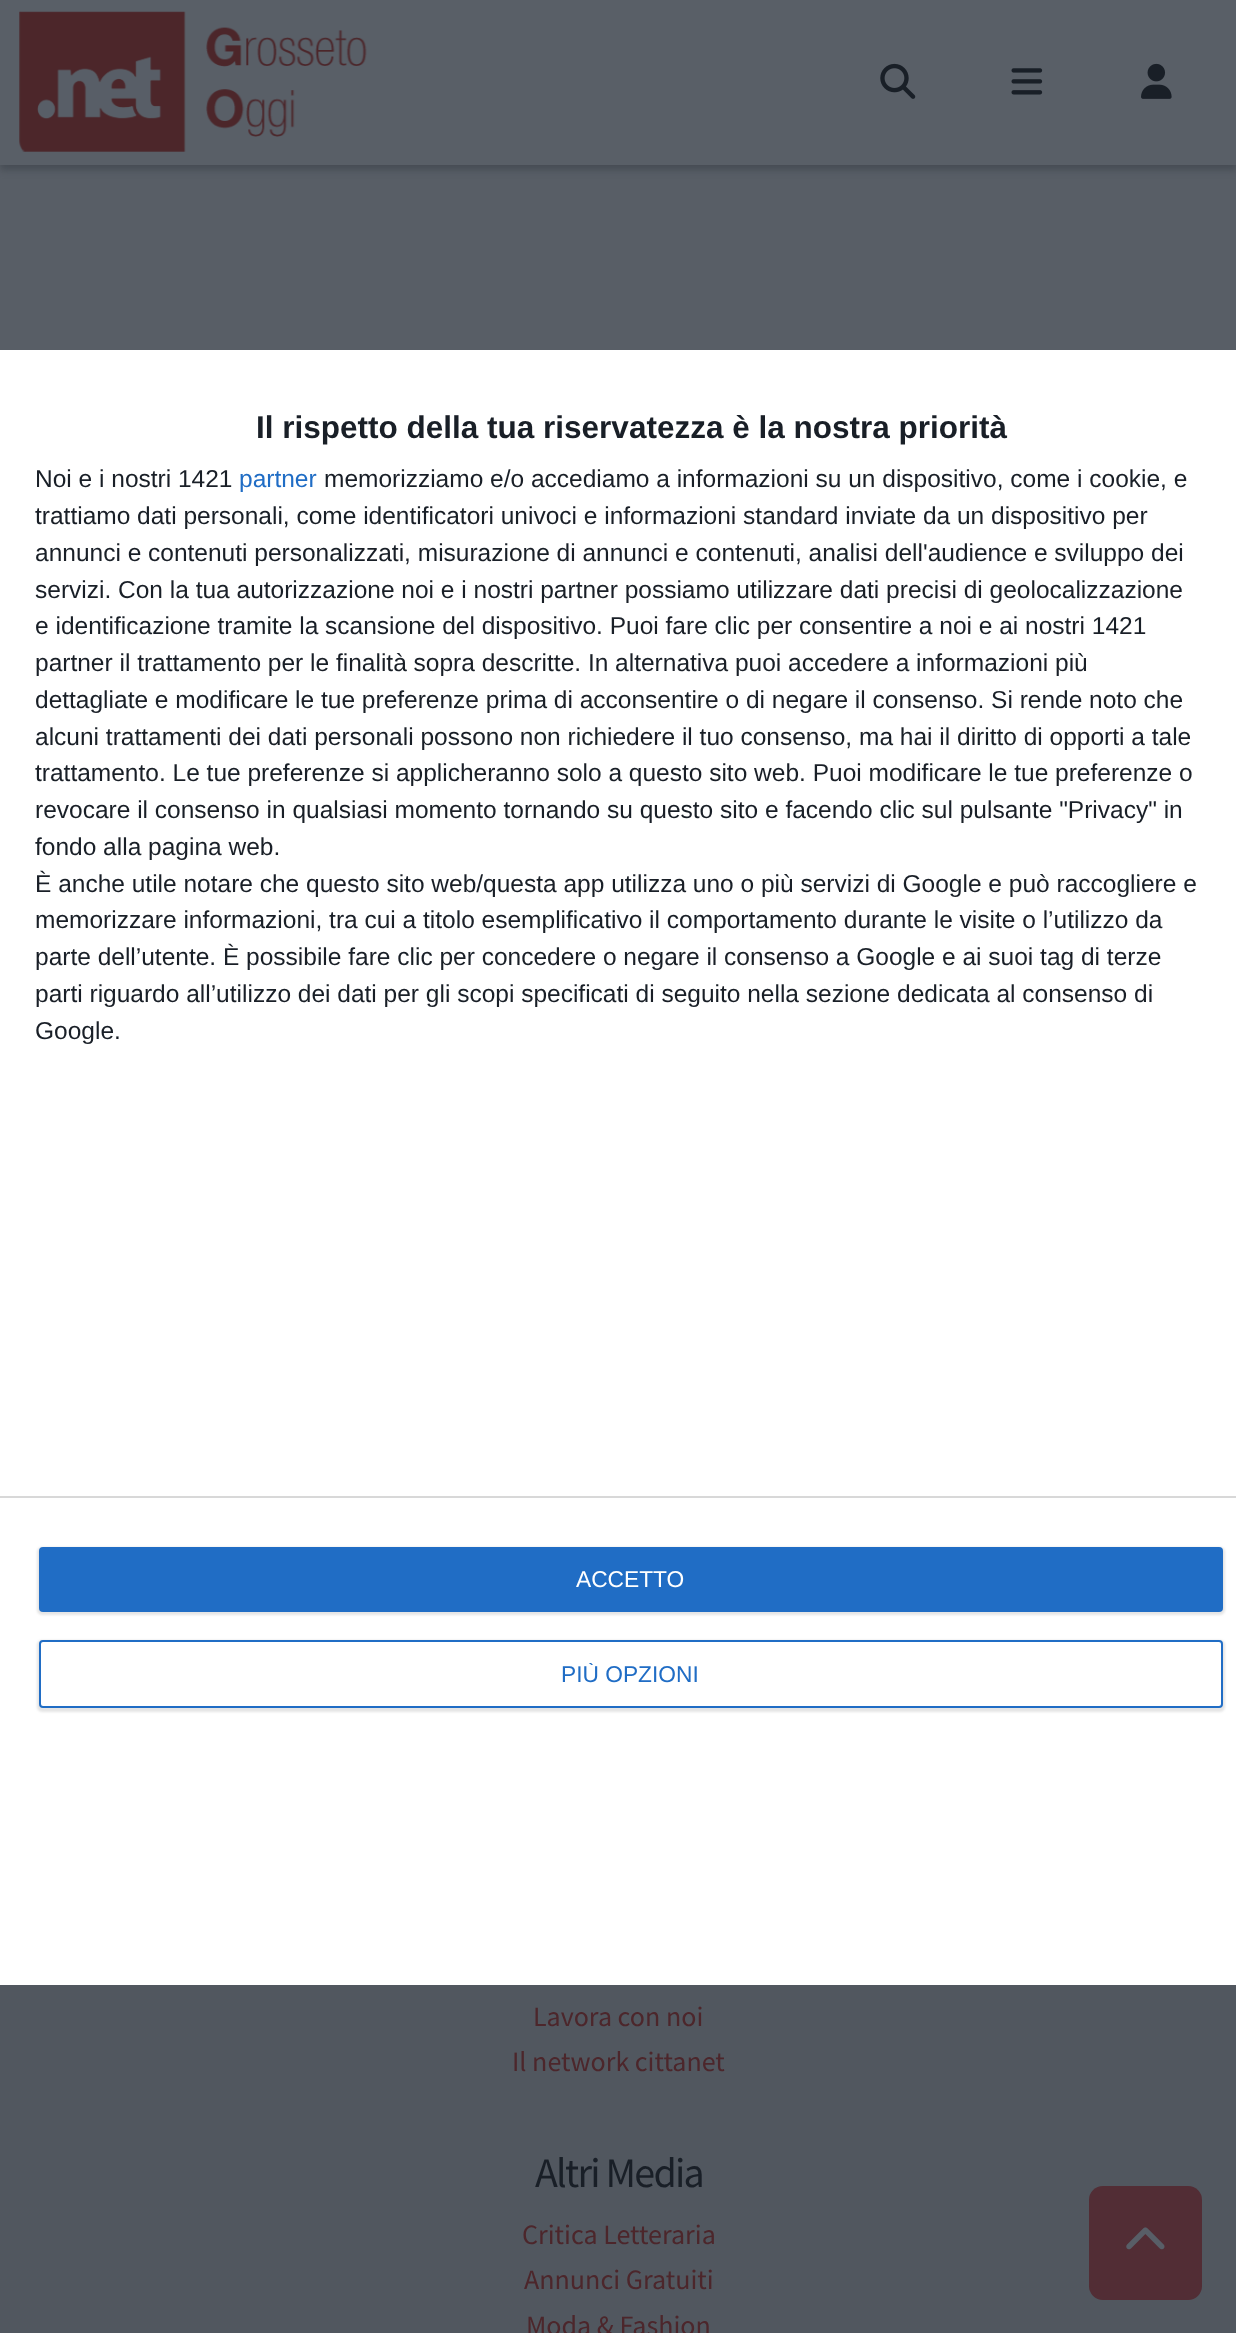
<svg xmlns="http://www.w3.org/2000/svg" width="1236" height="2333">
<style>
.a{font:bold 31.5px Liberation Sans;fill:#191f27}
.b{font:24.5px Liberation Sans;fill:#191f27}
.c{font:24.5px Liberation Sans;fill:#206dc5}
.d{font:22.75px Liberation Sans;fill:#fff}
.e{font:22.75px Liberation Sans;fill:#206dc5}
.f{font:28px Source Sans Pro;fill:#4c262b}
.g{font:42px Source Sans Pro;letter-spacing:-1.75px;fill:#191f27}
</style>
<defs>
<clipPath id="clip1"><path d="M562 1663h136v22H562z"/></clipPath>
</defs>
<rect width="100%" height="100%" fill="#585e66"/>
<path fill="#464c54" filter="blur(3.5px)" d="M0 5h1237v165H0z"/>
<path fill="#595f67" d="M0 0h1236v165H0z"/>
<image href="1.png" x="19" y="11" width="348" height="141"/>
<image href="2.png" x="880" y="63" width="36" height="36"/>
<image href="3.png" x="1011" y="68" width="32" height="27"/>
<image href="4.png" x="1141" y="63" width="31" height="36"/>
<path fill="#fff" d="M0 350h1236v1635H0z"/>
<path fill="#d8d8d8" d="M0 1496h1236v2H0z"/>
<rect fill="#0000001a" filter="blur(1px)" x="37" y="1547" width="1188" height="68" rx="5"/>
<rect fill="#206dc5" x="39" y="1547" width="1184" height="65" rx="4"/>
<rect fill="#0000001a" filter="blur(1px)" x="37" y="1640" width="1188" height="72" rx="5"/>
<rect fill="#fff" stroke="#206dc5" stroke-width="2" x="40" y="1641" width="1182" height="66" rx="3"/>
<path fill="#51575f" d="M0 1985h1236v348H0z"/>
<rect fill="#522d35" x="1089" y="2186" width="113" height="114" rx="14"/>
<image href="5.png" x="1126" y="2227" width="39" height="23"/>
<text class="a" x="256" y="438">Il rispetto della tua riservatezza è la nostra priorità</text>
<text class="b" x="35" y="487">Noi e i nostri 1421</text>
<text class="c" x="239" y="487">partner</text>
<text class="b" x="324" y="487">memorizziamo e/o accediamo a informazioni su un dispositivo, come i cookie, e</text>
<text class="b" x="35" y="524">trattiamo dati personali, come identificatori univoci e informazioni standard inviate da un dispositivo per</text>
<text class="b" x="35" y="561">annunci e contenuti personalizzati, misurazione di annunci e contenuti, analisi dell'audience e sviluppo dei</text>
<text class="b" x="35" y="598">servizi. Con la tua autorizzazione noi e i nostri partner possiamo utilizzare dati precisi di geolocalizzazione</text>
<text class="b" x="35" y="634">e identificazione tramite la scansione del dispositivo. Puoi fare clic per consentire a noi e ai nostri 1421</text>
<text class="b" x="35" y="671">partner il trattamento per le finalità sopra descritte. In alternativa puoi accedere a informazioni più</text>
<text class="b" x="35" y="708">dettagliate e modificare le tue preferenze prima di acconsentire o di negare il consenso. Si rende noto che</text>
<text class="b" x="35" y="745">alcuni trattamenti dei dati personali possono non richiedere il tuo consenso, ma hai il diritto di opporti a tale</text>
<text class="b" x="35" y="781">trattamento. Le tue preferenze si applicheranno solo a questo sito web. Puoi modificare le tue preferenze o</text>
<text class="b" x="35" y="818">revocare il consenso in qualsiasi momento tornando su questo sito e facendo clic sul pulsante "Privacy" in</text>
<text class="b" x="35" y="855">fondo alla pagina web.</text>
<text class="b" x="35" y="892">È anche utile notare che questo sito web/questa app utilizza uno o più servizi di Google e può raccogliere e</text>
<text class="b" x="35" y="928">memorizzare informazioni, tra cui a titolo esemplificativo il comportamento durante le visite o l’utilizzo da</text>
<text class="b" x="35" y="965">parte dell’utente. È possibile fare clic per concedere o negare il consenso a Google e ai suoi tag di terze</text>
<text class="b" x="35" y="1002">parti riguardo all’utilizzo dei dati per gli scopi specificati di seguito nella sezione dedicata al consenso di</text>
<text class="b" x="35" y="1039">Google.</text>
<text class="d" x="576" y="1587">ACCETTO</text>
<g clip-path="url(#clip1)">
<text class="e" x="561" y="1682">PIÙ OPZIONI</text>
</g>
<text class="f" x="533" y="2026">Lavora con noi</text>
<text class="f" x="512" y="2071">Il network cittanet</text>
<text class="g" x="535" y="2187">Altri Media</text>
<text class="f" x="522" y="2244">Critica Letteraria</text>
<text class="f" x="524" y="2289">Annunci Gratuiti</text>
<text class="f" x="526" y="2335">Moda &amp; Fashion</text>
</svg>
